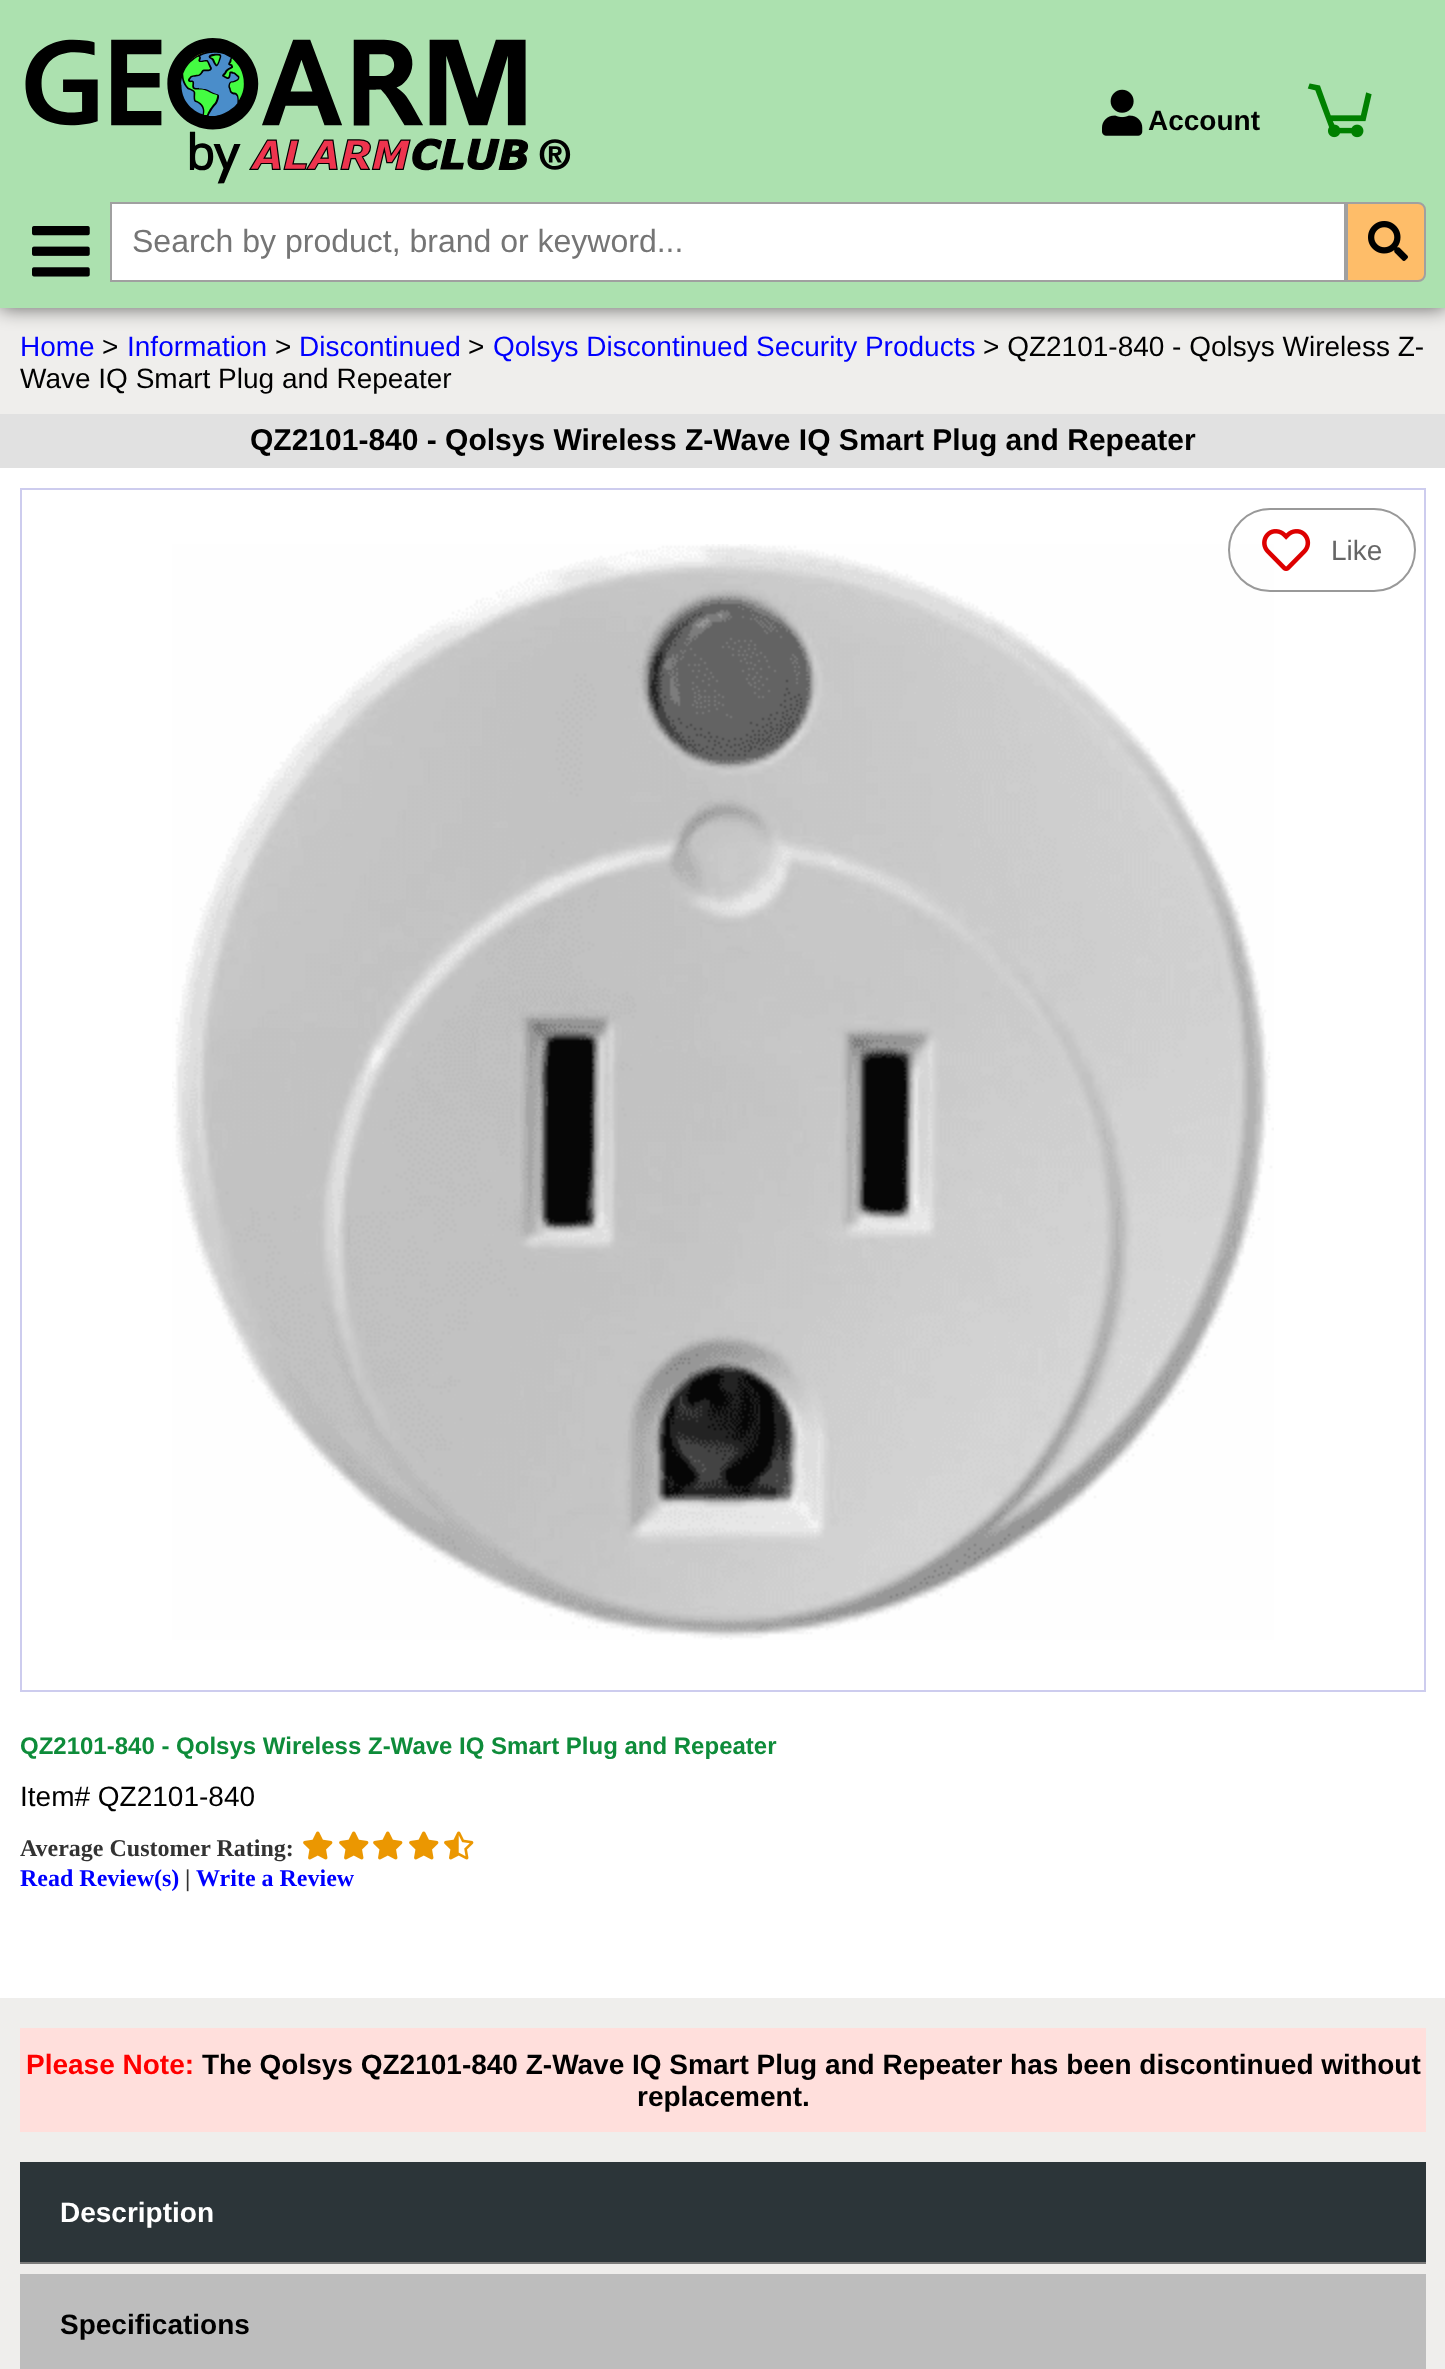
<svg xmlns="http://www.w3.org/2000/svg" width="1445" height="2369">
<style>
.a{font:bold 28px Liberation Sans;fill:#000}
.b{font:32px Liberation Sans;fill:#757575}
.c{font:28px Liberation Sans;fill:#00f}
.d{font:28px Liberation Sans;fill:#000}
.e{font:bold 30px Liberation Sans;fill:#000}
.f{font:28px Liberation Sans;fill:#666}
.g{font:bold 24px Liberation Sans;fill:#0e8c3a}
.h{font:bold 24px Liberation Serif;fill:#333}
.i{font:bold 24px Liberation Serif;fill:#00f}
.j{font:bold 28px Liberation Sans;fill:#f00}
.k{font:bold 28px Liberation Sans;fill:#fff}
</style>
<rect width="100%" height="100%" fill="#efeeec"/>
<path fill="#00000099" filter="blur(10px)" d="M0 -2h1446v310H0z"/>
<path fill="#ace1af" d="M0 0h1445v308H0z"/>
<image href="1.png" x="25" y="38" width="546" height="146"/>
<image href="2.png" x="1102" y="89" width="41" height="47"/>
<image href="3.png" x="1307" y="83" width="65" height="55"/>
<image href="4.png" x="32" y="226" width="58" height="51"/>
<path fill="#fff" stroke="#a0a0a0" stroke-width="2" d="M111 203h1234v78H111z"/>
<path fill="#febd69" stroke="#a0a0a0" stroke-width="2" d="M1347 203h71c4 0 7 3 7 7v64c0 4-3 7-7 7h-71z"/>
<image href="5.png" x="1368" y="221" width="40" height="40"/>
<path fill="#e1e1e1" d="M0 414h1445v54H0z"/>
<path fill="#fff" d="M0 468h1445v1530H0z"/>
<path fill="none" stroke="#cdccee" stroke-width="2" d="M21 489h1404v1202H21z"/>
<image href="6.png" x="172" y="544" width="1102" height="1096"/>
<rect fill="none" stroke="#999" stroke-width="2" x="1229" y="509" width="186" height="82" rx="41"/>
<image href="7.png" x="1262" y="529" width="49" height="42"/>
<image href="8.png" x="303" y="1831" width="30" height="29"/>
<image href="8.png" x="339" y="1831" width="30" height="29"/>
<image href="8.png" x="373" y="1831" width="30" height="29"/>
<image href="8.png" x="409" y="1831" width="30" height="29"/>
<image href="9.png" x="444" y="1831" width="30" height="29"/>
<path fill="#ffdfdc" d="M20 2028h1406v104H20z"/>
<path fill="#2c3539" d="M20 2162h1406v100H20z"/>
<path fill="#7b7b7b" d="M20 2262h1406v2H20z"/>
<path fill="#bdbdbd" d="M20 2274h1406v95H20z"/>
<text class="a" x="1148" y="130">Account</text>
<text class="b" x="132" y="252">Search by product, brand or keyword...</text>
<text class="c" x="20" y="356">Home</text>
<text class="d" x="102" y="356">&gt;</text>
<text class="c" x="127" y="356">Information</text>
<text class="d" x="275" y="356">&gt;</text>
<text class="c" x="299" y="356">Discontinued</text>
<text class="d" x="468" y="356">&gt;</text>
<text class="c" x="493" y="356">Qolsys Discontinued Security Products</text>
<text class="d" x="983" y="356">&gt; QZ2101-840 - Qolsys Wireless Z-</text>
<text class="d" x="20" y="388">Wave IQ Smart Plug and Repeater</text>
<text class="e" x="250" y="450">QZ2101-840 - Qolsys Wireless Z-Wave IQ Smart Plug and Repeater</text>
<text class="f" x="1331" y="560">Like</text>
<text class="g" x="20" y="1754">QZ2101-840 - Qolsys Wireless Z-Wave IQ Smart Plug and Repeater</text>
<text class="d" x="20" y="1806">Item# QZ2101-840</text>
<text class="h" x="20" y="1856">Average Customer Rating:</text>
<text class="i" x="20" y="1886">Read Review(s)</text>
<text class="h" x="185" y="1886">|</text>
<text class="i" x="196" y="1886">Write a Review</text>
<text class="j" x="26" y="2074">Please Note:</text>
<text class="a" x="202" y="2074">The Qolsys QZ2101-840 Z-Wave IQ Smart Plug and Repeater has been discontinued without</text>
<text class="a" x="637" y="2106">replacement.</text>
<text class="k" x="60" y="2222">Description</text>
<text class="a" x="60" y="2334">Specifications</text>
</svg>
